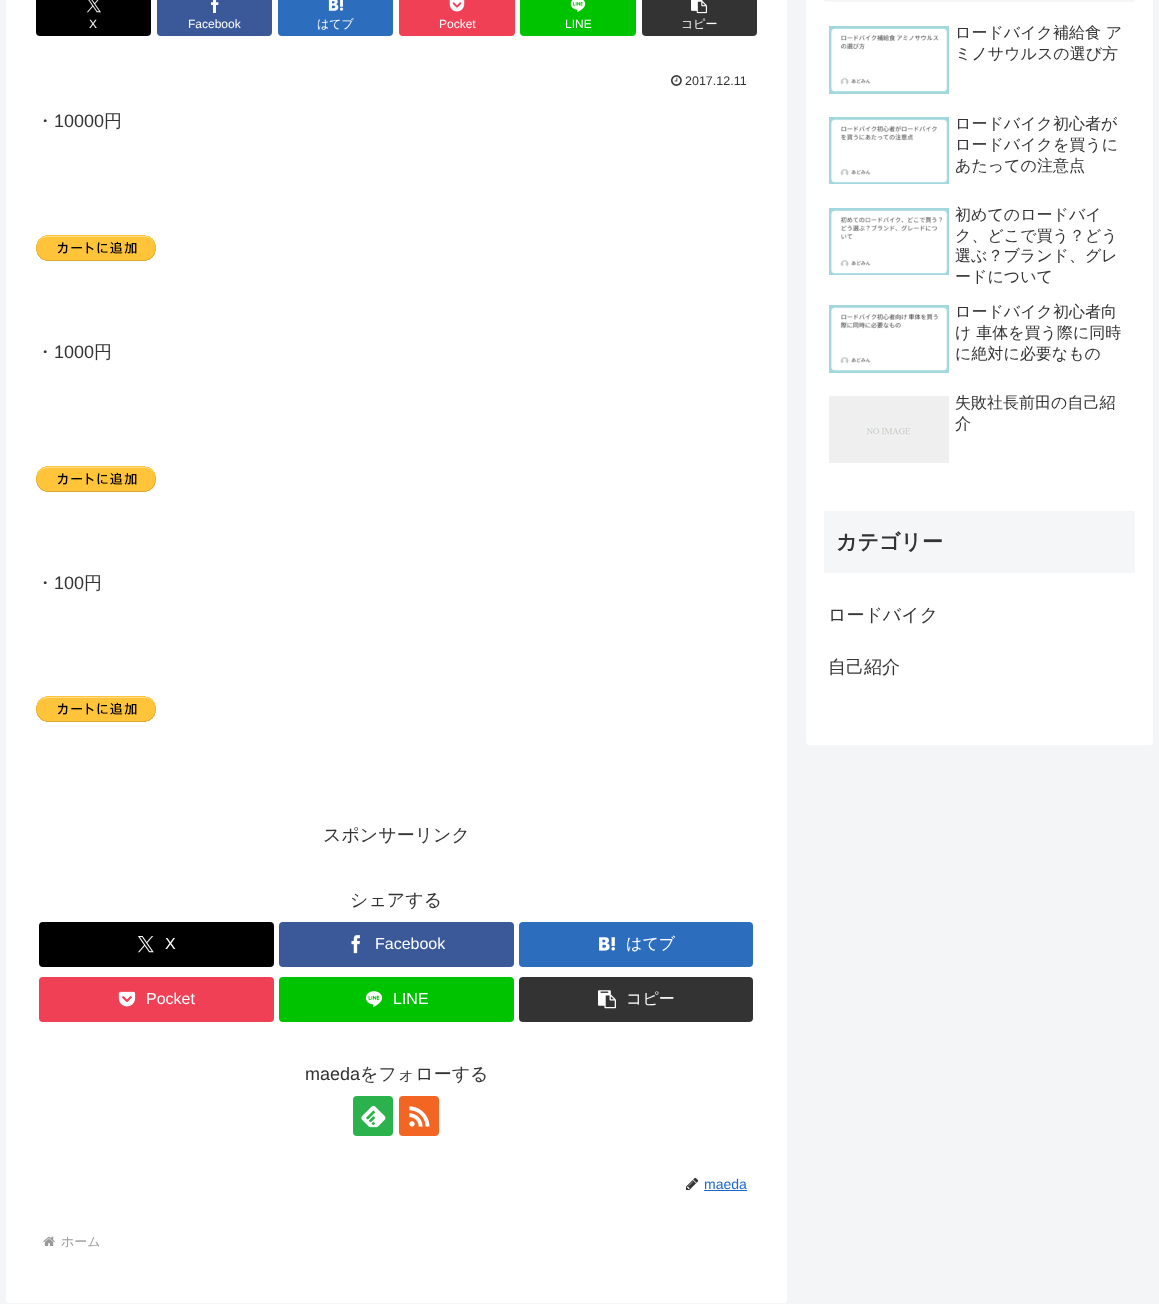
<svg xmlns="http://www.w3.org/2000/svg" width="1159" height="1304">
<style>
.a{font:12px Liberation Sans;fill:#fff}
.b{font:500 12px WenQuanYi Zen Hei;fill:#fff}
.c{font:12.5px Liberation Sans;fill:#333}
.d{font:500 18px WenQuanYi Zen Hei;fill:#333}
.e{font:18px Liberation Sans;fill:#333}
.f{font:16px Liberation Sans;fill:#fff}
.g{font:500 16px WenQuanYi Zen Hei;fill:#fff}
.h{font:14px Liberation Sans;fill:#1967d2}
.i{font:500 13px WenQuanYi Zen Hei;fill:#999}
.j{font:500 16px WenQuanYi Zen Hei;fill:#333}
.k{font:bold 21px WenQuanYi Zen Hei;fill:#333}
</style>
<rect width="100%" height="100%" fill="#f4f5f7"/>
<rect fill="#fff" x="6" y="-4" width="781" height="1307" rx="4"/>
<rect fill="#000" x="36" y="-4" width="115" height="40" rx="4"/>
<image href="1.png" x="86" y="0" width="15" height="13"/>
<rect fill="#3b5998" x="157" y="-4" width="115" height="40" rx="4"/>
<image href="2.png" x="211" y="0" width="8" height="13"/>
<rect fill="#2c6ebd" x="278" y="-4" width="115" height="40" rx="4"/>
<image href="3.png" x="328" y="0" width="16" height="11"/>
<rect fill="#ef4056" x="399" y="-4" width="116" height="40" rx="4"/>
<image href="4.png" x="449" y="0" width="16" height="12"/>
<rect fill="#00c300" x="520" y="-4" width="116" height="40" rx="4"/>
<image href="5.png" x="570" y="0" width="16" height="12"/>
<rect fill="#333" x="642" y="-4" width="115" height="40" rx="4"/>
<image href="6.png" x="691" y="0" width="16" height="14"/>
<image href="7.png" x="671" y="75" width="11" height="11"/>
<image href="8.png" x="36" y="235" width="120" height="26"/>
<image href="8.png" x="36" y="466" width="120" height="26"/>
<image href="8.png" x="36" y="696" width="120" height="26"/>
<rect fill="#000" x="39" y="922" width="235" height="45" rx="4"/>
<image href="9.png" x="138" y="936" width="16" height="17"/>
<rect fill="#3b5998" x="279" y="922" width="235" height="45" rx="4"/>
<image href="10.png" x="351" y="935" width="9" height="19"/>
<rect fill="#2c6ebd" x="519" y="922" width="234" height="45" rx="4"/>
<image href="11.png" x="599" y="937" width="16" height="14"/>
<rect fill="#ef4056" x="39" y="977" width="235" height="45" rx="4"/>
<image href="12.png" x="118" y="991" width="18" height="16"/>
<rect fill="#00c300" x="279" y="977" width="235" height="45" rx="4"/>
<image href="13.png" x="365" y="991" width="18" height="16"/>
<rect fill="#333" x="519" y="977" width="234" height="45" rx="4"/>
<image href="14.png" x="598" y="990" width="18" height="19"/>
<rect fill="#2bb24c" x="353" y="1096" width="40" height="40" rx="4"/>
<image href="15.png" x="361" y="1105" width="25" height="23"/>
<rect fill="#f26522" x="399" y="1096" width="40" height="40" rx="4"/>
<image href="16.png" x="409" y="1106" width="21" height="21"/>
<image href="17.png" x="686" y="1177" width="13" height="13"/>
<path fill="#1967d2" d="M704 1190h43v1H704z"/>
<image href="18.png" x="43" y="1236" width="12" height="10"/>
<rect fill="#fff" x="806" y="-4" width="347" height="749" rx="4"/>
<rect fill="#f5f6f7" x="824" y="-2" width="311" height="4" rx="2"/>
<image href="19.png" x="829" y="26" width="120" height="68"/>
<image href="20.png" x="829" y="117" width="120" height="67"/>
<image href="21.png" x="829" y="208" width="120" height="67"/>
<image href="22.png" x="829" y="305" width="120" height="68"/>
<image href="23.png" x="829" y="396" width="120" height="67"/>
<rect fill="#f5f6f7" x="824" y="511" width="311" height="62" rx="2"/>
<text class="a" x="89" y="28">X</text>
<text class="a" x="188" y="28">Facebook</text>
<text class="b" x="317" y="28">はてブ</text>
<text class="a" x="439" y="28">Pocket</text>
<text class="a" x="565" y="28">LINE</text>
<text class="b" x="681" y="28">コピー</text>
<text class="c" x="685" y="85">2017.12.11</text>
<text class="d" x="36" y="127">・</text>
<text class="e" x="54" y="127">10000</text>
<text class="d" x="104" y="127">円</text>
<text class="d" x="36" y="358">・</text>
<text class="e" x="54" y="358">1000</text>
<text class="d" x="94" y="358">円</text>
<text class="d" x="36" y="589">・</text>
<text class="e" x="54" y="589">100</text>
<text class="d" x="84" y="589">円</text>
<text class="d" x="323" y="841">スポンサーリンク</text>
<text class="d" x="350" y="906">シェアする</text>
<text class="f" x="165" y="949">X</text>
<text class="f" x="375" y="949">Facebook</text>
<text class="g" x="626" y="949">はてブ</text>
<text class="f" x="146" y="1004">Pocket</text>
<text class="f" x="393" y="1004">LINE</text>
<text class="g" x="626" y="1004">コピー</text>
<text class="e" x="305" y="1080">maeda</text>
<text class="d" x="360" y="1080">をフォローする</text>
<text class="h" x="704" y="1189">maeda</text>
<text class="i" x="61" y="1246">ホーム</text>
<text class="j" x="955" y="38">ロードバイク補給食 ア</text>
<text class="j" x="955" y="59">ミノサウルスの選び方</text>
<text class="j" x="955" y="129">ロードバイク初心者が</text>
<text class="j" x="955" y="150">ロードバイクを買うに</text>
<text class="j" x="955" y="171">あたっての注意点</text>
<text class="j" x="955" y="220">初めてのロードバイ</text>
<text class="j" x="955" y="241">ク、どこで買う？どう</text>
<text class="j" x="955" y="261">選ぶ？ブランド、グレ</text>
<text class="j" x="955" y="282">ードについて</text>
<text class="j" x="955" y="317">ロードバイク初心者向</text>
<text class="j" x="955" y="338">け 車体を買う際に同時</text>
<text class="j" x="955" y="359">に絶対に必要なもの</text>
<text class="j" x="955" y="408">失敗社長前田の自己紹</text>
<text class="j" x="955" y="429">介</text>
<text class="k" x="836" y="549">カテゴリー</text>
<text class="d" x="828" y="621">ロードバイク</text>
<text class="d" x="828" y="673">自己紹介</text>
</svg>
